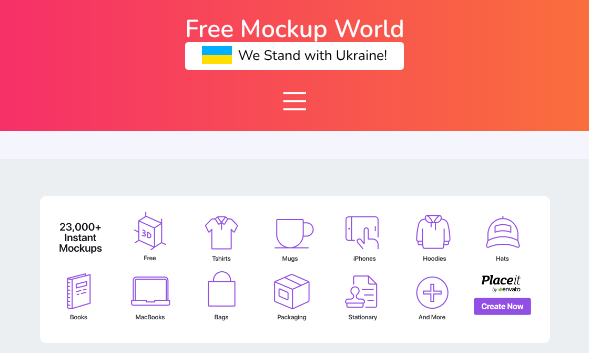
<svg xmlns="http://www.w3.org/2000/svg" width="589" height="353">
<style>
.a{font:200 24.5px Nunito;fill:#fff}
.b{font:200 14px 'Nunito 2';fill:#000}
</style>
<defs>
<linearGradient id="g1" gradientUnits="userSpaceOnUse" x1="0" y1="66" x2="589" y2="65"><stop offset="0" stop-color="#f63068"/><stop offset="1" stop-color="#fa6e3d"/></linearGradient>
</defs>
<rect width="100%" height="100%" fill="#f4f5fd"/>
<path fill="url(#g1)" d="M0 0h589v131H0z"/>
<rect fill="#fff" x="185" y="42" width="219" height="28" rx="4"/>
<path fill="#ffde00" d="M202 55h30v9H202z"/>
<path fill="#00aeff" d="M202 46h30v9H202z"/>
<image href="1.png" x="283" y="92" width="23" height="19"/>
<path fill="#ebeff1" d="M0 159h589v194H0z"/>
<rect fill="#fff" x="40" y="196" width="510" height="147" rx="6"/>
<image href="2.png" x="59" y="211" width="472" height="110"/>
<text class="a" x="185" y="37">Free Mockup World</text>
<text class="b" x="238" y="60">We Stand with Ukraine!</text>
</svg>
